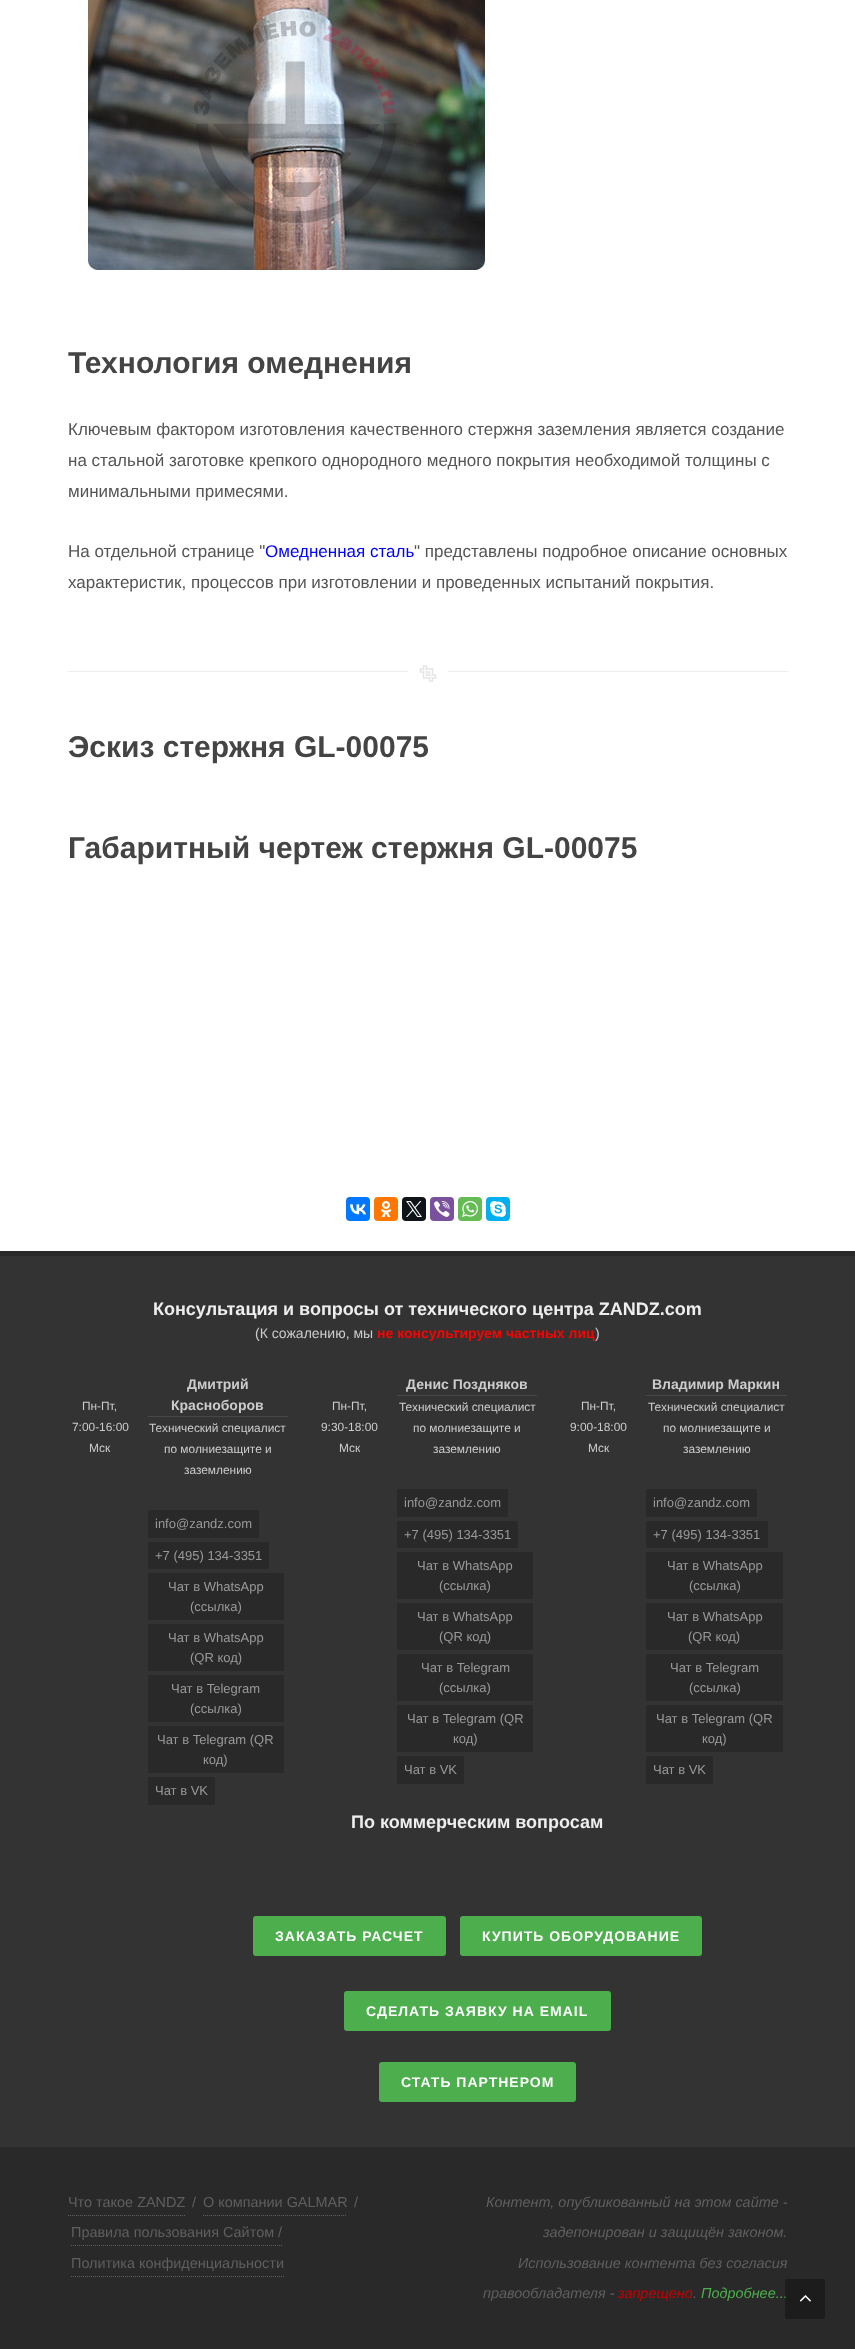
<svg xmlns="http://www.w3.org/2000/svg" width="855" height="2349">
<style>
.a{font:bold 30px Liberation Sans;fill:#444}
.b{font:17px Liberation Sans;fill:#555}
.c{font:17px Liberation Sans;fill:#00f}
.d{font:bold 18px Liberation Sans;fill:#eee}
.e{font:14px Liberation Sans;fill:#ccc}
.f{font:bold 14px Liberation Sans;fill:#f00}
.g{font:11.9px Liberation Sans;fill:#ccc}
.h{font:bold 14px Liberation Sans;fill:#ccc}
.i{font:13px Liberation Sans;fill:#999}
.j{font:bold 14px Liberation Sans;letter-spacing:1px;fill:#fff}
.k{font:14.45px Liberation Sans;fill:#5f5f5f}
.l{font:italic 14.45px Liberation Sans;fill:#5f5f5f}
.m{font:italic 14.45px Liberation Sans;fill:#c90000}
.n{font:italic 14.45px Liberation Sans;fill:#4cae4c}
</style>
<rect width="100%" height="100%" fill="#fff"/>
<image href="1.png" x="88" y="0" width="397" height="270"/>
<path fill="#eee" d="M68 671h340v1H68z"/>
<image href="2.png" x="419" y="665" width="18" height="17"/>
<path fill="#eee" d="M448 671h340v1H448z"/>
<rect fill="#07f" x="346" y="1197" width="24" height="24" rx="4"/>
<image href="3.png" x="350" y="1204" width="16" height="11"/>
<rect fill="#f70" x="374" y="1197" width="24" height="24" rx="4"/>
<image href="4.png" x="380" y="1201" width="12" height="16"/>
<rect fill="#0f1419" x="402" y="1197" width="24" height="24" rx="4"/>
<image href="5.png" x="406" y="1201" width="16" height="16"/>
<rect fill="#7b519d" x="430" y="1197" width="24" height="24" rx="4"/>
<image href="6.png" x="434" y="1201" width="16" height="16"/>
<rect fill="#65bc54" x="458" y="1197" width="24" height="24" rx="4"/>
<image href="7.png" x="462" y="1201" width="16" height="16"/>
<rect fill="#00aff0" x="486" y="1197" width="24" height="24" rx="4"/>
<image href="8.png" x="490" y="1201" width="16" height="16"/>
<path fill="#333" d="M0 1256h855v891H0z"/>
<path fill="#292929" d="M0 1251h855v5H0z"/>
<path fill="#474747" d="M148 1416h140v1H148z"/>
<rect fill="#292929" x="148" y="1510" width="111" height="28" rx="2"/>
<rect fill="#292929" x="148" y="1542" width="121" height="27" rx="2"/>
<rect fill="#292929" x="148" y="1573" width="136" height="47" rx="2"/>
<rect fill="#292929" x="148" y="1624" width="136" height="47" rx="2"/>
<rect fill="#292929" x="148" y="1675" width="136" height="47" rx="2"/>
<rect fill="#292929" x="148" y="1726" width="136" height="47" rx="2"/>
<rect fill="#292929" x="148" y="1777" width="67" height="28" rx="2"/>
<path fill="#474747" d="M397 1395h140v1H397z"/>
<rect fill="#292929" x="397" y="1489" width="111" height="28" rx="2"/>
<rect fill="#292929" x="397" y="1521" width="121" height="27" rx="2"/>
<rect fill="#292929" x="397" y="1552" width="136" height="47" rx="2"/>
<rect fill="#292929" x="397" y="1603" width="136" height="47" rx="2"/>
<rect fill="#292929" x="397" y="1654" width="136" height="47" rx="2"/>
<rect fill="#292929" x="397" y="1705" width="136" height="47" rx="2"/>
<rect fill="#292929" x="397" y="1756" width="67" height="28" rx="2"/>
<path fill="#474747" d="M646 1395h141v1H646z"/>
<rect fill="#292929" x="646" y="1489" width="111" height="28" rx="2"/>
<rect fill="#292929" x="646" y="1521" width="122" height="27" rx="2"/>
<rect fill="#292929" x="646" y="1552" width="137" height="47" rx="2"/>
<rect fill="#292929" x="646" y="1603" width="137" height="47" rx="2"/>
<rect fill="#292929" x="646" y="1654" width="137" height="47" rx="2"/>
<rect fill="#292929" x="646" y="1705" width="137" height="47" rx="2"/>
<rect fill="#292929" x="646" y="1756" width="67" height="28" rx="2"/>
<rect fill="#4cae4c" x="253" y="1916" width="193" height="40" rx="3"/>
<rect fill="#4cae4c" x="460" y="1916" width="242" height="40" rx="3"/>
<rect fill="#4cae4c" x="344" y="1991" width="267" height="40" rx="3"/>
<rect fill="#4cae4c" x="379" y="2062" width="197" height="40" rx="3"/>
<path fill="#292929" d="M0 2147h855v202H0z"/>
<path fill="none" stroke="#5f5f5f" stroke-dasharray="1 1" d="M68 2215.5h117"/>
<path fill="none" stroke="#5f5f5f" stroke-dasharray="1 1" d="M203 2215.5h144"/>
<path fill="none" stroke="#5f5f5f" stroke-dasharray="1 1" d="M71 2245.5h211"/>
<path fill="none" stroke="#5f5f5f" stroke-dasharray="1 1" d="M71 2276.5h213"/>
<text class="a" x="68" y="373">Технология омеднения</text>
<text class="b" x="68" y="435">Ключевым фактором изготовления качественного стержня заземления является создание</text>
<text class="b" x="68" y="466">на стальной заготовке крепкого однородного медного покрытия необходимой толщины с</text>
<text class="b" x="68" y="497">минимальными примесями.</text>
<text class="b" x="68" y="557">На отдельной странице "</text>
<text class="c" x="265" y="557">Омедненная сталь</text>
<text class="b" x="414" y="557">" представлены подробное описание основных</text>
<text class="b" x="68" y="588">характеристик, процессов при изготовлении и проведенных испытаний покрытия.</text>
<text class="a" x="68" y="757">Эскиз стержня GL-00075</text>
<text class="a" x="68" y="858">Габаритный чертеж стержня GL-00075</text>
<text class="d" x="153" y="1315">Консультация и вопросы от технического центра ZANDZ.com</text>
<text class="e" x="255" y="1338">(К сожалению, мы</text>
<text class="f" x="377" y="1338">не консультируем частных лиц</text>
<text class="e" x="595" y="1338">)</text>
<text class="g" x="82" y="1410">Пн-Пт,</text>
<text class="g" x="72" y="1431">7:00-16:00</text>
<text class="g" x="89" y="1452">Мск</text>
<text class="h" x="187" y="1389">Дмитрий</text>
<text class="h" x="171" y="1410">Красноборов</text>
<text class="g" x="149" y="1432">Технический специалист</text>
<text class="g" x="164" y="1453">по молниезащите и</text>
<text class="g" x="184" y="1474">заземлению</text>
<text class="i" x="155" y="1528">info@zandz.com</text>
<text class="i" x="155" y="1560">+7 (495) 134-3351</text>
<text class="i" x="168" y="1591">Чат в WhatsApp</text>
<text class="i" x="190" y="1611">(ссылка)</text>
<text class="i" x="168" y="1642">Чат в WhatsApp</text>
<text class="i" x="190" y="1662">(QR код)</text>
<text class="i" x="171" y="1693">Чат в Telegram</text>
<text class="i" x="190" y="1713">(ссылка)</text>
<text class="i" x="157" y="1744">Чат в Telegram (QR</text>
<text class="i" x="203" y="1764">код)</text>
<text class="i" x="155" y="1795">Чат в VK</text>
<text class="g" x="332" y="1410">Пн-Пт,</text>
<text class="g" x="321" y="1431">9:30-18:00</text>
<text class="g" x="339" y="1452">Мск</text>
<text class="h" x="406" y="1389">Денис Поздняков</text>
<text class="g" x="399" y="1411">Технический специалист</text>
<text class="g" x="413" y="1432">по молниезащите и</text>
<text class="g" x="433" y="1453">заземлению</text>
<text class="i" x="404" y="1507">info@zandz.com</text>
<text class="i" x="404" y="1539">+7 (495) 134-3351</text>
<text class="i" x="417" y="1570">Чат в WhatsApp</text>
<text class="i" x="439" y="1590">(ссылка)</text>
<text class="i" x="417" y="1621">Чат в WhatsApp</text>
<text class="i" x="439" y="1641">(QR код)</text>
<text class="i" x="421" y="1672">Чат в Telegram</text>
<text class="i" x="439" y="1692">(ссылка)</text>
<text class="i" x="407" y="1723">Чат в Telegram (QR</text>
<text class="i" x="453" y="1743">код)</text>
<text class="i" x="404" y="1774">Чат в VK</text>
<text class="g" x="581" y="1410">Пн-Пт,</text>
<text class="g" x="570" y="1431">9:00-18:00</text>
<text class="g" x="588" y="1452">Мск</text>
<text class="h" x="652" y="1389">Владимир Маркин</text>
<text class="g" x="648" y="1411">Технический специалист</text>
<text class="g" x="663" y="1432">по молниезащите и</text>
<text class="g" x="683" y="1453">заземлению</text>
<text class="i" x="653" y="1507">info@zandz.com</text>
<text class="i" x="653" y="1539">+7 (495) 134-3351</text>
<text class="i" x="667" y="1570">Чат в WhatsApp</text>
<text class="i" x="689" y="1590">(ссылка)</text>
<text class="i" x="667" y="1621">Чат в WhatsApp</text>
<text class="i" x="688" y="1641">(QR код)</text>
<text class="i" x="670" y="1672">Чат в Telegram</text>
<text class="i" x="689" y="1692">(ссылка)</text>
<text class="i" x="656" y="1723">Чат в Telegram (QR</text>
<text class="i" x="702" y="1743">код)</text>
<text class="i" x="653" y="1774">Чат в VK</text>
<text class="d" x="351" y="1828">По коммерческим вопросам</text>
<text class="j" x="275" y="1941">ЗАКАЗАТЬ РАСЧЕТ</text>
<text class="j" x="482" y="1941">КУПИТЬ ОБОРУДОВАНИЕ</text>
<text class="j" x="366" y="2016">СДЕЛАТЬ ЗАЯВКУ НА EMAIL</text>
<text class="j" x="401" y="2087">СТАТЬ ПАРТНЕРОМ</text>
<text class="k" x="68" y="2207">Что такое ZANDZ</text>
<text class="k" x="192" y="2207">/</text>
<text class="k" x="203" y="2207">О компании GALMAR</text>
<text class="k" x="354" y="2207">/</text>
<text class="k" x="71" y="2237">Правила пользования Сайтом /</text>
<text class="k" x="71" y="2268">Политика конфиденциальности</text>
<text class="l" x="486" y="2207">Контент, опубликованный на этом сайте -</text>
<text class="l" x="543" y="2237">задепонирован и защищён законом.</text>
<text class="l" x="518" y="2268">Использование контента без согласия</text>
<text class="l" x="483" y="2298">правообладателя -</text>
<text class="m" x="618" y="2298">запрещено</text>
<text class="l" x="693" y="2298">.</text>
<text class="n" x="701" y="2298">Подробнее...</text>
<rect fill="#0000004d" x="785" y="2279" width="40" height="40" rx="2"/>
<image href="9.png" x="799" y="2295" width="12" height="7"/>
</svg>
